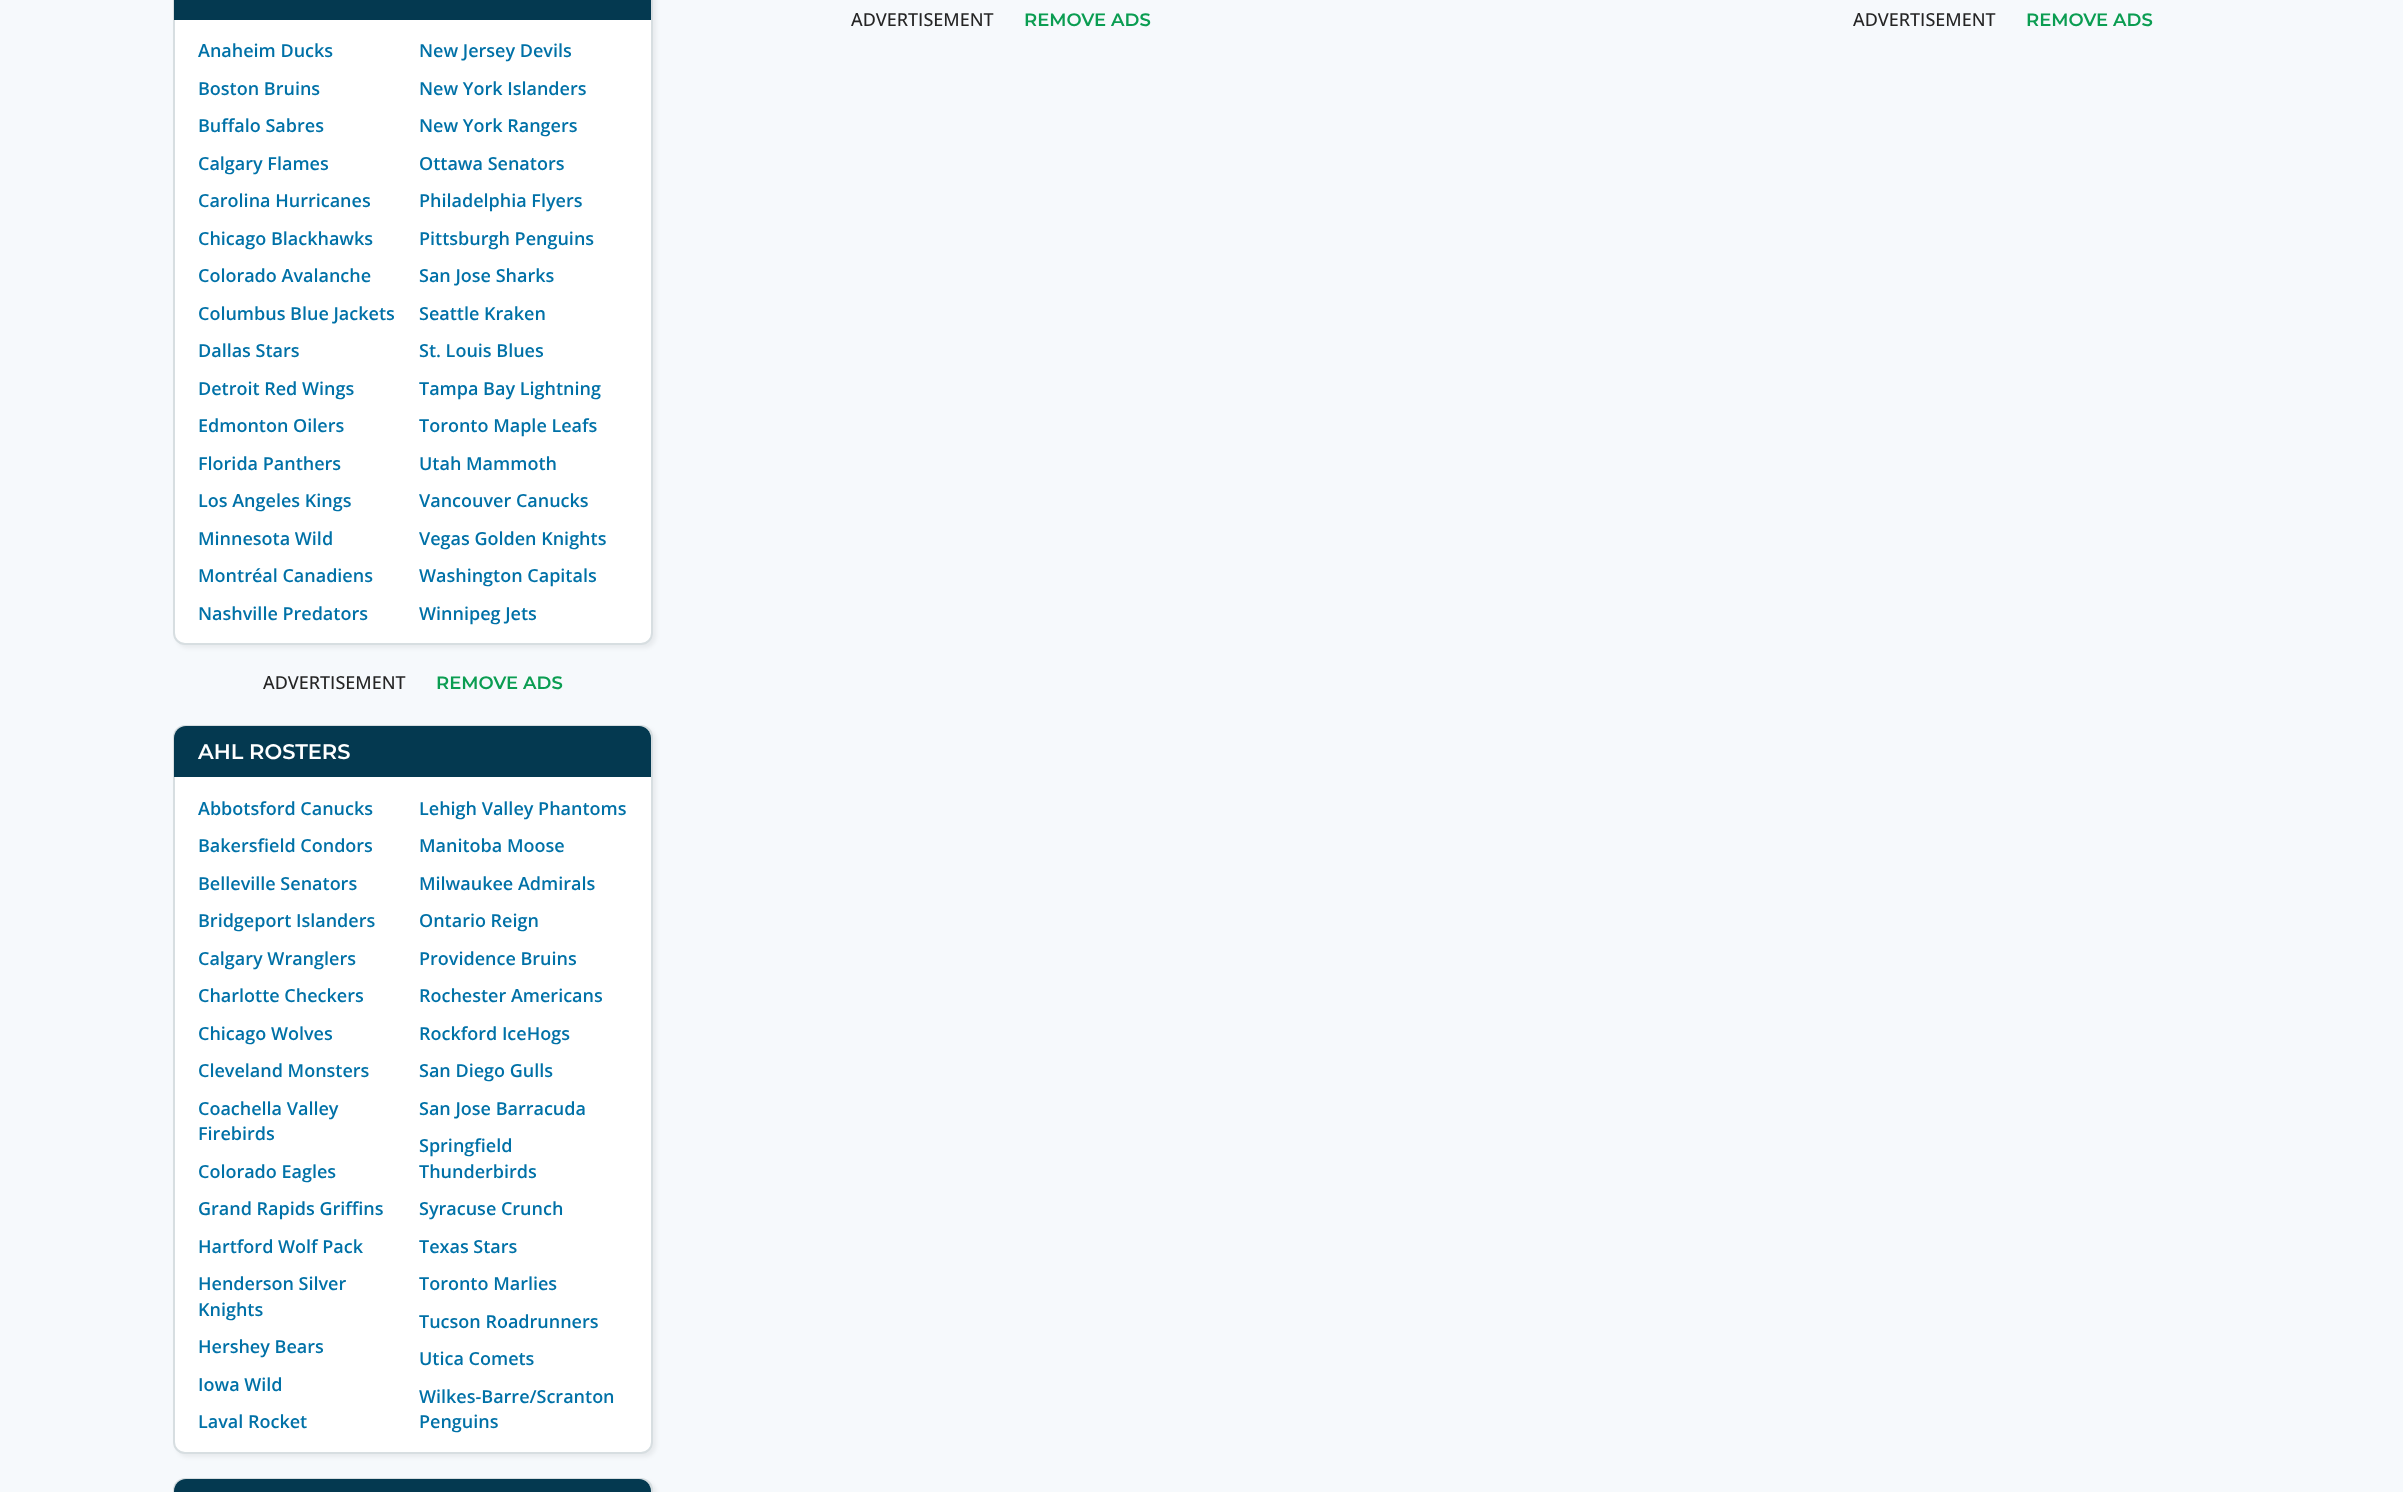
<svg xmlns="http://www.w3.org/2000/svg" width="2403" height="1492">
<style>
.a{font:500 18px Open Sans;fill:#252525}
.b{font:600 18px Montserrat;fill:#0b9d52}
.c{font:600 18px Open Sans;fill:#0071a7}
.d{font:600 21px Montserrat;fill:#fff}
</style>
<rect width="100%" height="100%" fill="#f6f9fc"/>
<rect fill="#0000000f" filter="blur(2px)" x="176" y="-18" width="480" height="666" rx="12"/>
<rect fill="#fff" stroke="#d7dee1" stroke-width="2" x="174" y="-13" width="478" height="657" rx="11"/>
<path fill="#043950" d="M174 0h477v20H174z"/>
<rect fill="#0000000f" filter="blur(2px)" x="176" y="728" width="480" height="729" rx="12"/>
<rect fill="#fff" stroke="#d7dee1" stroke-width="2" x="174" y="726" width="478" height="727" rx="11"/>
<path fill="#043950" d="M186 726h453c6.5 0 12 5.5 12 12v39h-477v-39c0-6.5 5.5-12 12-12z"/>
<rect fill="#0000000f" filter="blur(2px)" x="176" y="1481" width="480" height="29" rx="12"/>
<rect fill="#fff" stroke="#d7dee1" stroke-width="2" x="174" y="1479" width="478" height="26" rx="11"/>
<path fill="#043950" d="M186 1479h453c6.5 0 12 5.5 12 12v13h-477v-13c0-6.5 5.5-12 12-12z"/>
<text class="a" x="851" y="26">ADVERTISEMENT</text>
<text class="b" x="1024" y="26">REMOVE ADS</text>
<text class="a" x="1853" y="26">ADVERTISEMENT</text>
<text class="b" x="2026" y="26">REMOVE ADS</text>
<text class="c" x="198" y="57">Anaheim Ducks</text>
<text class="c" x="419" y="57">New Jersey Devils</text>
<text class="c" x="198" y="95">Boston Bruins</text>
<text class="c" x="419" y="95">New York Islanders</text>
<text class="c" x="198" y="132">Buffalo Sabres</text>
<text class="c" x="419" y="132">New York Rangers</text>
<text class="c" x="198" y="170">Calgary Flames</text>
<text class="c" x="419" y="170">Ottawa Senators</text>
<text class="c" x="198" y="207">Carolina Hurricanes</text>
<text class="c" x="419" y="207">Philadelphia Flyers</text>
<text class="c" x="198" y="245">Chicago Blackhawks</text>
<text class="c" x="419" y="245">Pittsburgh Penguins</text>
<text class="c" x="198" y="282">Colorado Avalanche</text>
<text class="c" x="419" y="282">San Jose Sharks</text>
<text class="c" x="198" y="320">Columbus Blue Jackets</text>
<text class="c" x="419" y="320">Seattle Kraken</text>
<text class="c" x="198" y="357">Dallas Stars</text>
<text class="c" x="419" y="357">St. Louis Blues</text>
<text class="c" x="198" y="395">Detroit Red Wings</text>
<text class="c" x="419" y="395">Tampa Bay Lightning</text>
<text class="c" x="198" y="432">Edmonton Oilers</text>
<text class="c" x="419" y="432">Toronto Maple Leafs</text>
<text class="c" x="198" y="470">Florida Panthers</text>
<text class="c" x="419" y="470">Utah Mammoth</text>
<text class="c" x="198" y="507">Los Angeles Kings</text>
<text class="c" x="419" y="507">Vancouver Canucks</text>
<text class="c" x="198" y="545">Minnesota Wild</text>
<text class="c" x="419" y="545">Vegas Golden Knights</text>
<text class="c" x="198" y="582">Montréal Canadiens</text>
<text class="c" x="419" y="582">Washington Capitals</text>
<text class="c" x="198" y="620">Nashville Predators</text>
<text class="c" x="419" y="620">Winnipeg Jets</text>
<text class="a" x="263" y="689">ADVERTISEMENT</text>
<text class="b" x="436" y="689">REMOVE ADS</text>
<text class="d" x="198" y="759">AHL ROSTERS</text>
<text class="c" x="198" y="815">Abbotsford Canucks</text>
<text class="c" x="419" y="815">Lehigh Valley Phantoms</text>
<text class="c" x="198" y="852">Bakersfield Condors</text>
<text class="c" x="419" y="852">Manitoba Moose</text>
<text class="c" x="198" y="890">Belleville Senators</text>
<text class="c" x="419" y="890">Milwaukee Admirals</text>
<text class="c" x="198" y="927">Bridgeport Islanders</text>
<text class="c" x="419" y="927">Ontario Reign</text>
<text class="c" x="198" y="965">Calgary Wranglers</text>
<text class="c" x="419" y="965">Providence Bruins</text>
<text class="c" x="198" y="1002">Charlotte Checkers</text>
<text class="c" x="419" y="1002">Rochester Americans</text>
<text class="c" x="198" y="1040">Chicago Wolves</text>
<text class="c" x="419" y="1040">Rockford IceHogs</text>
<text class="c" x="198" y="1077">Cleveland Monsters</text>
<text class="c" x="419" y="1077">San Diego Gulls</text>
<text class="c" x="198" y="1115">Coachella Valley</text>
<text class="c" x="198" y="1140">Firebirds</text>
<text class="c" x="419" y="1115">San Jose Barracuda</text>
<text class="c" x="198" y="1178">Colorado Eagles</text>
<text class="c" x="419" y="1152">Springfield</text>
<text class="c" x="419" y="1178">Thunderbirds</text>
<text class="c" x="198" y="1215">Grand Rapids Griffins</text>
<text class="c" x="419" y="1215">Syracuse Crunch</text>
<text class="c" x="198" y="1253">Hartford Wolf Pack</text>
<text class="c" x="419" y="1253">Texas Stars</text>
<text class="c" x="198" y="1290">Henderson Silver</text>
<text class="c" x="198" y="1316">Knights</text>
<text class="c" x="419" y="1290">Toronto Marlies</text>
<text class="c" x="419" y="1328">Tucson Roadrunners</text>
<text class="c" x="198" y="1353">Hershey Bears</text>
<text class="c" x="419" y="1365">Utica Comets</text>
<text class="c" x="198" y="1391">Iowa Wild</text>
<text class="c" x="198" y="1428">Laval Rocket</text>
<text class="c" x="419" y="1403">Wilkes-Barre/Scranton</text>
<text class="c" x="419" y="1428">Penguins</text>
</svg>
